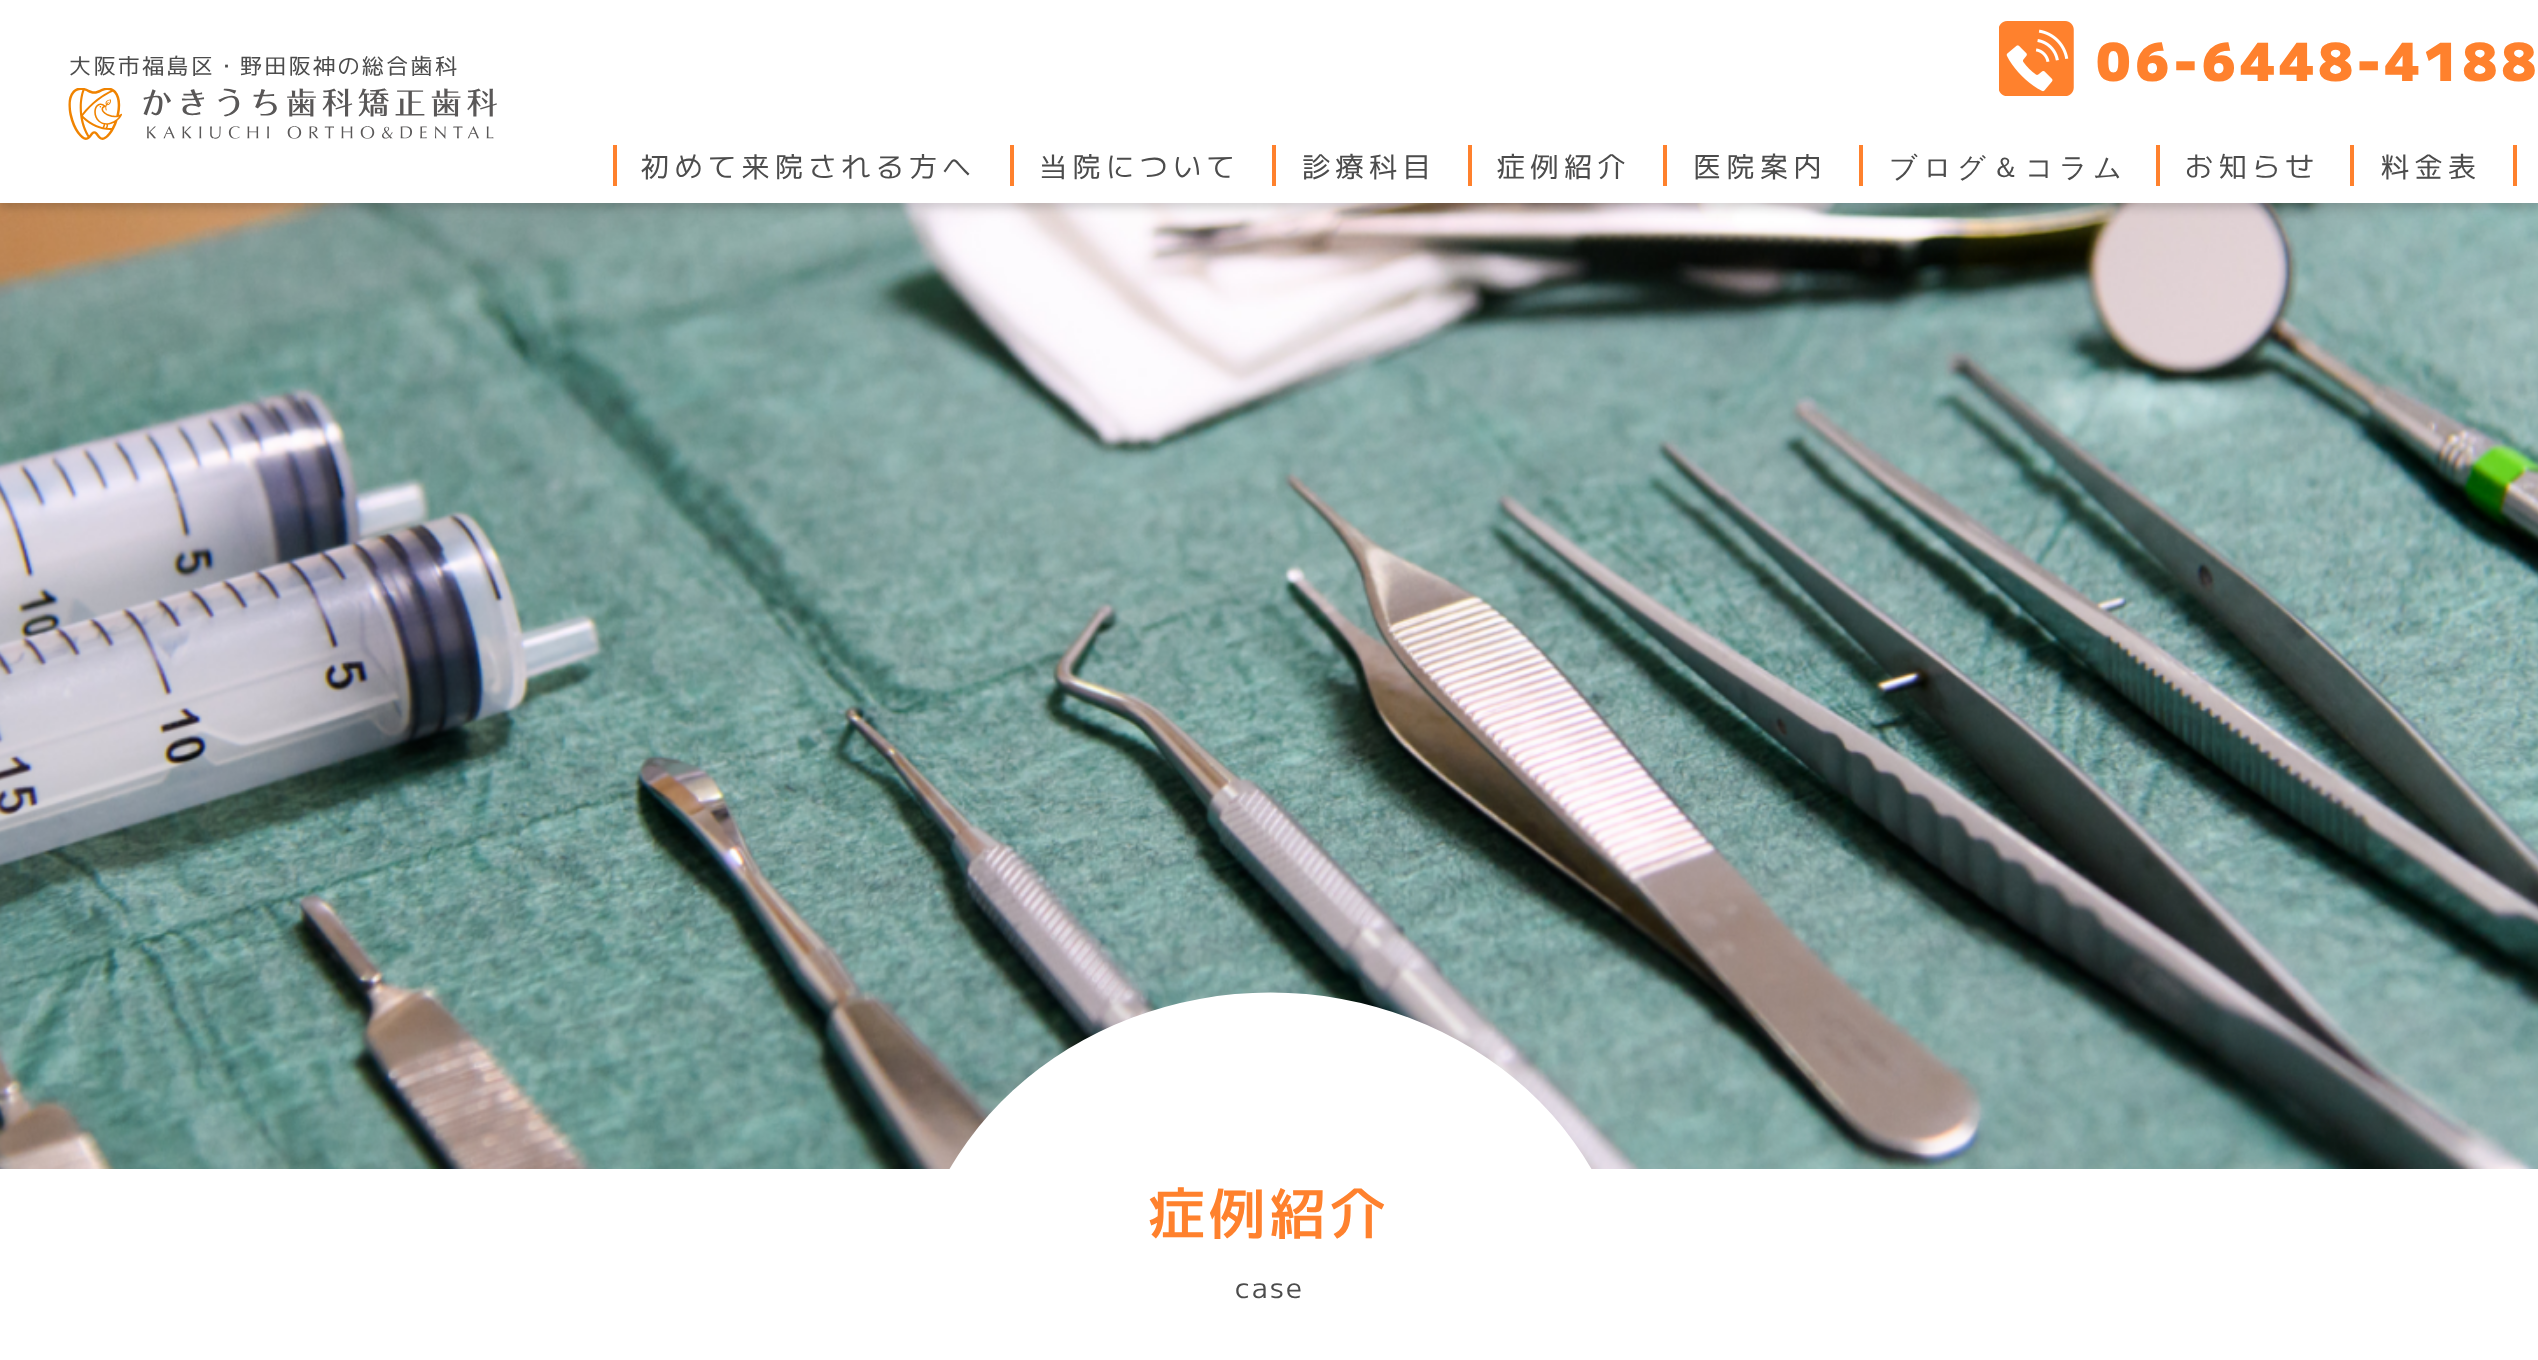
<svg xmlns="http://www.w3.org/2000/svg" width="2538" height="1360">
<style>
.a{font:22px 'M PLUS 1';letter-spacing:2.4px;fill:#4c4c4c}
.b{font:900 52.5px 'M PLUS 1';letter-spacing:4.25px;fill:#ff812d}
.c{font:28px 'M PLUS 1';letter-spacing:5.5px;fill:#4c4c4c}
.d{font:500 28px WenQuanYi Zen Hei;letter-spacing:5.5px;fill:#4c4c4c}
.e{font:500 56px 'M PLUS 1';letter-spacing:4.25px;fill:#ff812d}
.f{font:28px 'M PLUS 1';letter-spacing:2.4px;fill:#4c4c4c}
</style>
<rect width="100%" height="100%" fill="#fff"/>
<image href="3.png" x="0" y="203" width="2538" height="966"/>
<path fill="#00000029" filter="blur(5px)" d="M0 5h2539v203H0z"/>
<path fill="#fff" d="M0 0h2538v203H0z"/>
<image href="1.png" x="68" y="88" width="429" height="52"/>
<image href="2.png" x="1999" y="21" width="75" height="75"/>
<path fill="#ff812d" d="M2513 145h4v41H2513z"/>
<path fill="#ff812d" d="M613 145h4v41H613z"/>
<path fill="#ff812d" d="M1010 145h4v41H1010z"/>
<path fill="#ff812d" d="M1272 145h4v41H1272z"/>
<path fill="#ff812d" d="M1468 145h4v41H1468z"/>
<path fill="#ff812d" d="M1663 145h4v41H1663z"/>
<path fill="#ff812d" d="M1859 145h4v41H1859z"/>
<path fill="#ff812d" d="M2156 145h4v41H2156z"/>
<path fill="#ff812d" d="M2350 145h4v41H2350z"/>
<ellipse fill="#fff" cx="1270.5" cy="1326.5" rx="364" ry="334"/>
<text class="a" x="69" y="74">大阪市福島区・野田阪神の総合歯科</text>
<text class="b" x="2096" y="81">06-6448-4188</text>
<text class="c" x="641" y="177">初めて来院される方へ</text>
<text class="c" x="1039" y="177">当院について</text>
<text class="c" x="1302" y="177">診療科目</text>
<text class="c" x="1497" y="177">症例紹介</text>
<text class="c" x="1693" y="177">医院案内</text>
<text class="d" x="1889" y="177">ブログ＆コラム</text>
<text class="c" x="2185" y="177">お知らせ</text>
<text class="c" x="2381" y="177">料金表</text>
<text class="e" x="1149" y="1234">症例紹介</text>
<text class="f" x="1235" y="1298">case</text>
</svg>
